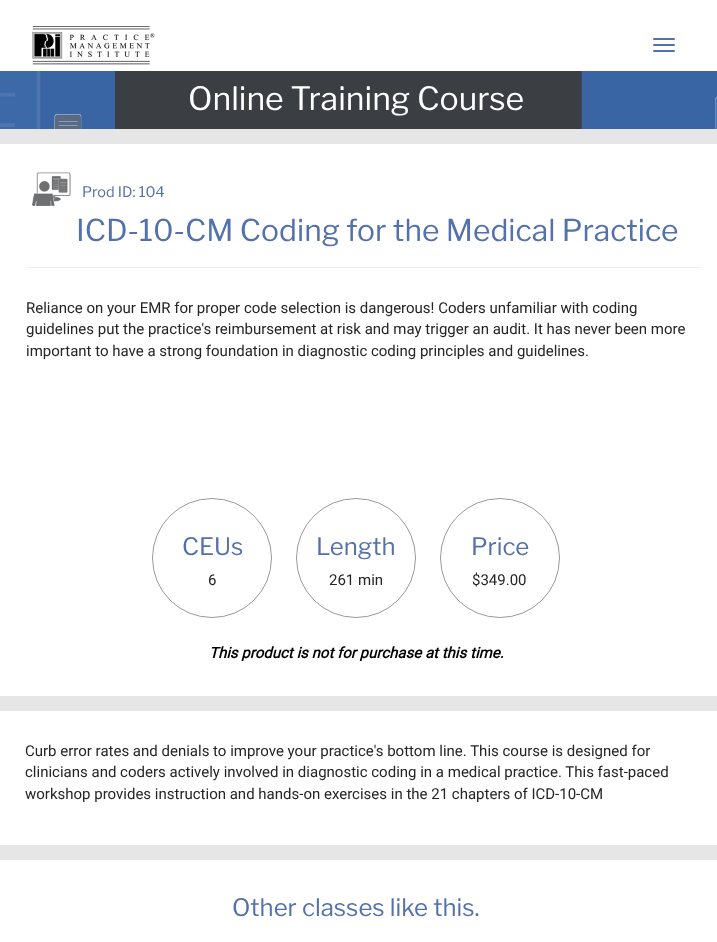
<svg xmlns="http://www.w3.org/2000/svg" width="717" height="942">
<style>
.a{font:100 32px Libre Franklin;fill:#fff}
.b{font:100 14.5px Libre Franklin;fill:#5371ad}
.c{font:100 30px Libre Franklin;fill:#5371ad}
.d{font:15px Roboto;fill:#252525}
.e{font:100 24px Libre Franklin;fill:#5371ad}
.f{font:italic bold 15px Roboto;fill:#000}
</style>
<rect width="100%" height="100%" fill="#e6e6e6"/>
<path fill="#fff" d="M0 0h717v71H0z"/>
<image href="1.png" x="32" y="26" width="123" height="39"/>
<rect fill="#5371ad" x="653" y="38" width="22" height="2" rx="1"/>
<rect fill="#5371ad" x="653" y="44" width="22" height="2" rx="1"/>
<rect fill="#5371ad" x="653" y="50" width="22" height="2" rx="1"/>
<image href="2.png" x="0" y="71" width="717" height="58"/>
<path fill="#fff" d="M0 144h717v552H0z"/>
<image href="3.png" x="32" y="172" width="39" height="34"/>
<path fill="#eee" d="M26 267h676v1H26z"/>
<circle fill="none" stroke="#999" cx="212" cy="558" r="59.5"/>
<circle fill="none" stroke="#999" cx="356" cy="558" r="59.5"/>
<circle fill="none" stroke="#999" cx="500" cy="558" r="59.5"/>
<path fill="#fff" d="M0 711h717v134H0z"/>
<path fill="#fff" d="M0 860h717v82H0z"/>
<text class="a" x="188" y="110">Online Training Course</text>
<text class="b" x="82" y="197">Prod ID: 104</text>
<text class="c" x="76" y="241">ICD-10-CM Coding for the Medical Practice</text>
<text class="d" x="26" y="313">Reliance on your EMR for proper code selection is dangerous! Coders unfamiliar with coding</text>
<text class="d" x="26" y="334">guidelines put the practice's reimbursement at risk and may trigger an audit. It has never been more</text>
<text class="d" x="26" y="356">important to have a strong foundation in diagnostic coding principles and guidelines.</text>
<text class="e" x="182" y="555">CEUs</text>
<text class="d" x="208" y="585">6</text>
<text class="e" x="316" y="555">Length</text>
<text class="d" x="329" y="585">261 min</text>
<text class="e" x="471" y="555">Price</text>
<text class="d" x="472" y="585">$349.00</text>
<text class="f" x="209" y="658">This product is not for purchase at this time.</text>
<text class="d" x="25" y="756">Curb error rates and denials to improve your practice's bottom line. This course is designed for</text>
<text class="d" x="25" y="777">clinicians and coders actively involved in diagnostic coding in a medical practice. This fast-paced</text>
<text class="d" x="25" y="799">workshop provides instruction and hands-on exercises in the 21 chapters of ICD-10-CM</text>
<text class="e" x="232" y="916">Other classes like this.</text>
</svg>
